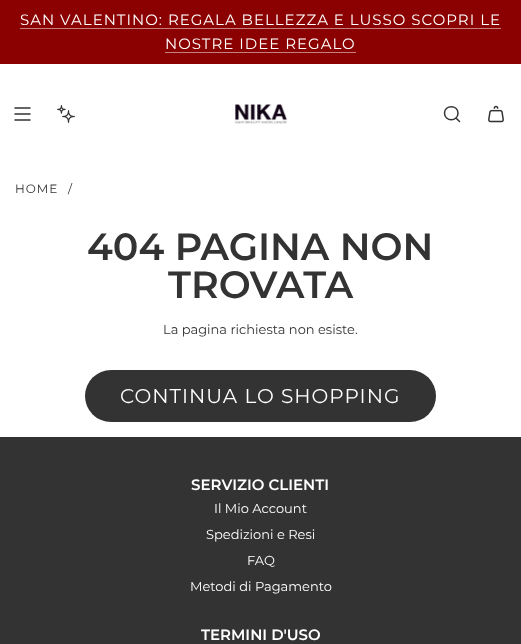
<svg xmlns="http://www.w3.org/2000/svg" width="521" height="644">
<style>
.a{font:15px Montserrat;letter-spacing:1px;fill:#fff}
.b{font:12px Montserrat;letter-spacing:1px;fill:#333}
.c{font:12px Montserrat;fill:#333}
.d{font:600 38px Montserrat;fill:#333}
.e{font:13px Montserrat;fill:#333}
.f{font:20px Montserrat;letter-spacing:1px;fill:#fff}
.g{font:600 15px Montserrat;fill:#fff}
.h{font:13px Montserrat;fill:#fff}
</style>
<rect width="100%" height="100%" fill="#fff"/>
<path fill="#8b0000" d="M0 0h521v64H0z"/>
<path fill="#c58080" d="M20 28h481v1H20z"/>
<path fill="#c58080" d="M165 52h191v1H165z"/>
<path fill="none" stroke="#333" stroke-width="1.5" stroke-linecap="round" stroke-linejoin="round" d="M15 108h15m-15 6h15m-15 6h15"/>
<image href="1.png" x="57" y="105" width="18" height="18"/>
<image href="2.png" x="235" y="104" width="53" height="20"/>
<path fill="none" stroke="#333" stroke-width="1.5" stroke-linecap="round" stroke-linejoin="round" d="M456 118l3.5 3.5m-15-8.5c0 9 13.5 9 13.5 0c0-8.5-13.5-8.5-13.5 0z"/>
<image href="3.png" x="488" y="105" width="16" height="18"/>
<rect fill="#333" x="85" y="370" width="351" height="52" rx="26"/>
<path fill="#333" d="M0 437h521v207H0z"/>
<text class="a" x="20" y="25">SAN VALENTINO: REGALA BELLEZZA E LUSSO SCOPRI LE</text>
<text class="a" x="165" y="49">NOSTRE IDEE REGALO</text>
<text class="b" x="15" y="193">HOME</text>
<text class="c" x="68" y="193">/</text>
<text class="d" x="87" y="260">404 PAGINA NON</text>
<text class="d" x="168" y="298">TROVATA</text>
<text class="e" x="163" y="334">La pagina richiesta non esiste.</text>
<text class="f" x="120" y="403">CONTINUA LO SHOPPING</text>
<text class="g" x="191" y="490">SERVIZIO CLIENTI</text>
<text class="h" x="214" y="513">Il Mio Account</text>
<text class="h" x="206" y="539">Spedizioni e Resi</text>
<text class="h" x="247" y="565">FAQ</text>
<text class="h" x="190" y="591">Metodi di Pagamento</text>
<text class="g" x="201" y="640">TERMINI D'USO</text>
</svg>
